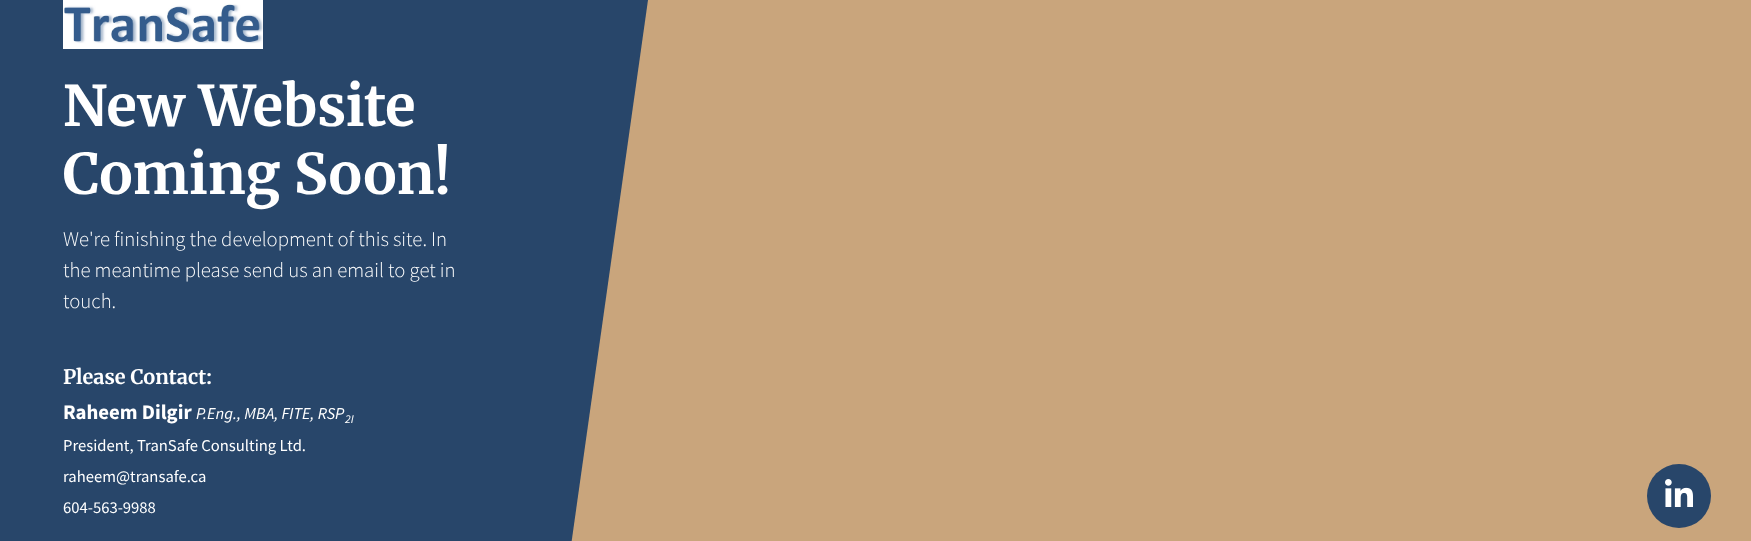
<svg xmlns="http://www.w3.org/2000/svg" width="1751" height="541">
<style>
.a{font:bold 56px Merriweather;fill:#fff}
.b{font:300 20.75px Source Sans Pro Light;fill:#fff}
.c{font:bold 20px Merriweather;fill:#fff}
.d{font:bold 20.75px Source Sans Pro;fill:#fff}
.e{font:italic 16.6px Source Sans Pro;fill:#fff}
.f{font:italic 12px Source Sans Pro;fill:#fff}
.g{font:16.6px Source Sans Pro;fill:#fff}
</style>
<rect width="100%" height="100%" fill="#c9a57c"/>
<path fill="#28466a" d="M0 0h648l-79 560h-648z"/>
<image href="1.png" x="63" y="0" width="200" height="49"/>
<circle fill="#28466a" cx="1679" cy="496" r="32"/>
<image href="2.png" x="1665" y="479" width="28" height="28"/>
<text class="a" x="63" y="126">New Website</text>
<text class="a" x="63" y="194">Coming Soon!</text>
<text class="b" x="63" y="246">We're finishing the development of this site. In</text>
<text class="b" x="63" y="277">the meantime please send us an email to get in</text>
<text class="b" x="63" y="308">touch.</text>
<text class="c" x="63" y="384">Please Contact:</text>
<text class="d" x="63" y="419">Raheem Dilgir</text>
<text class="e" x="196" y="419">P.Eng., MBA, FITE, RSP</text>
<text class="f" x="345" y="423">2I</text>
<text class="g" x="63" y="451">President, TranSafe Consulting Ltd.</text>
<text class="g" x="63" y="482">raheem@transafe.ca</text>
<text class="g" x="63" y="513">604-563-9988</text>
</svg>
